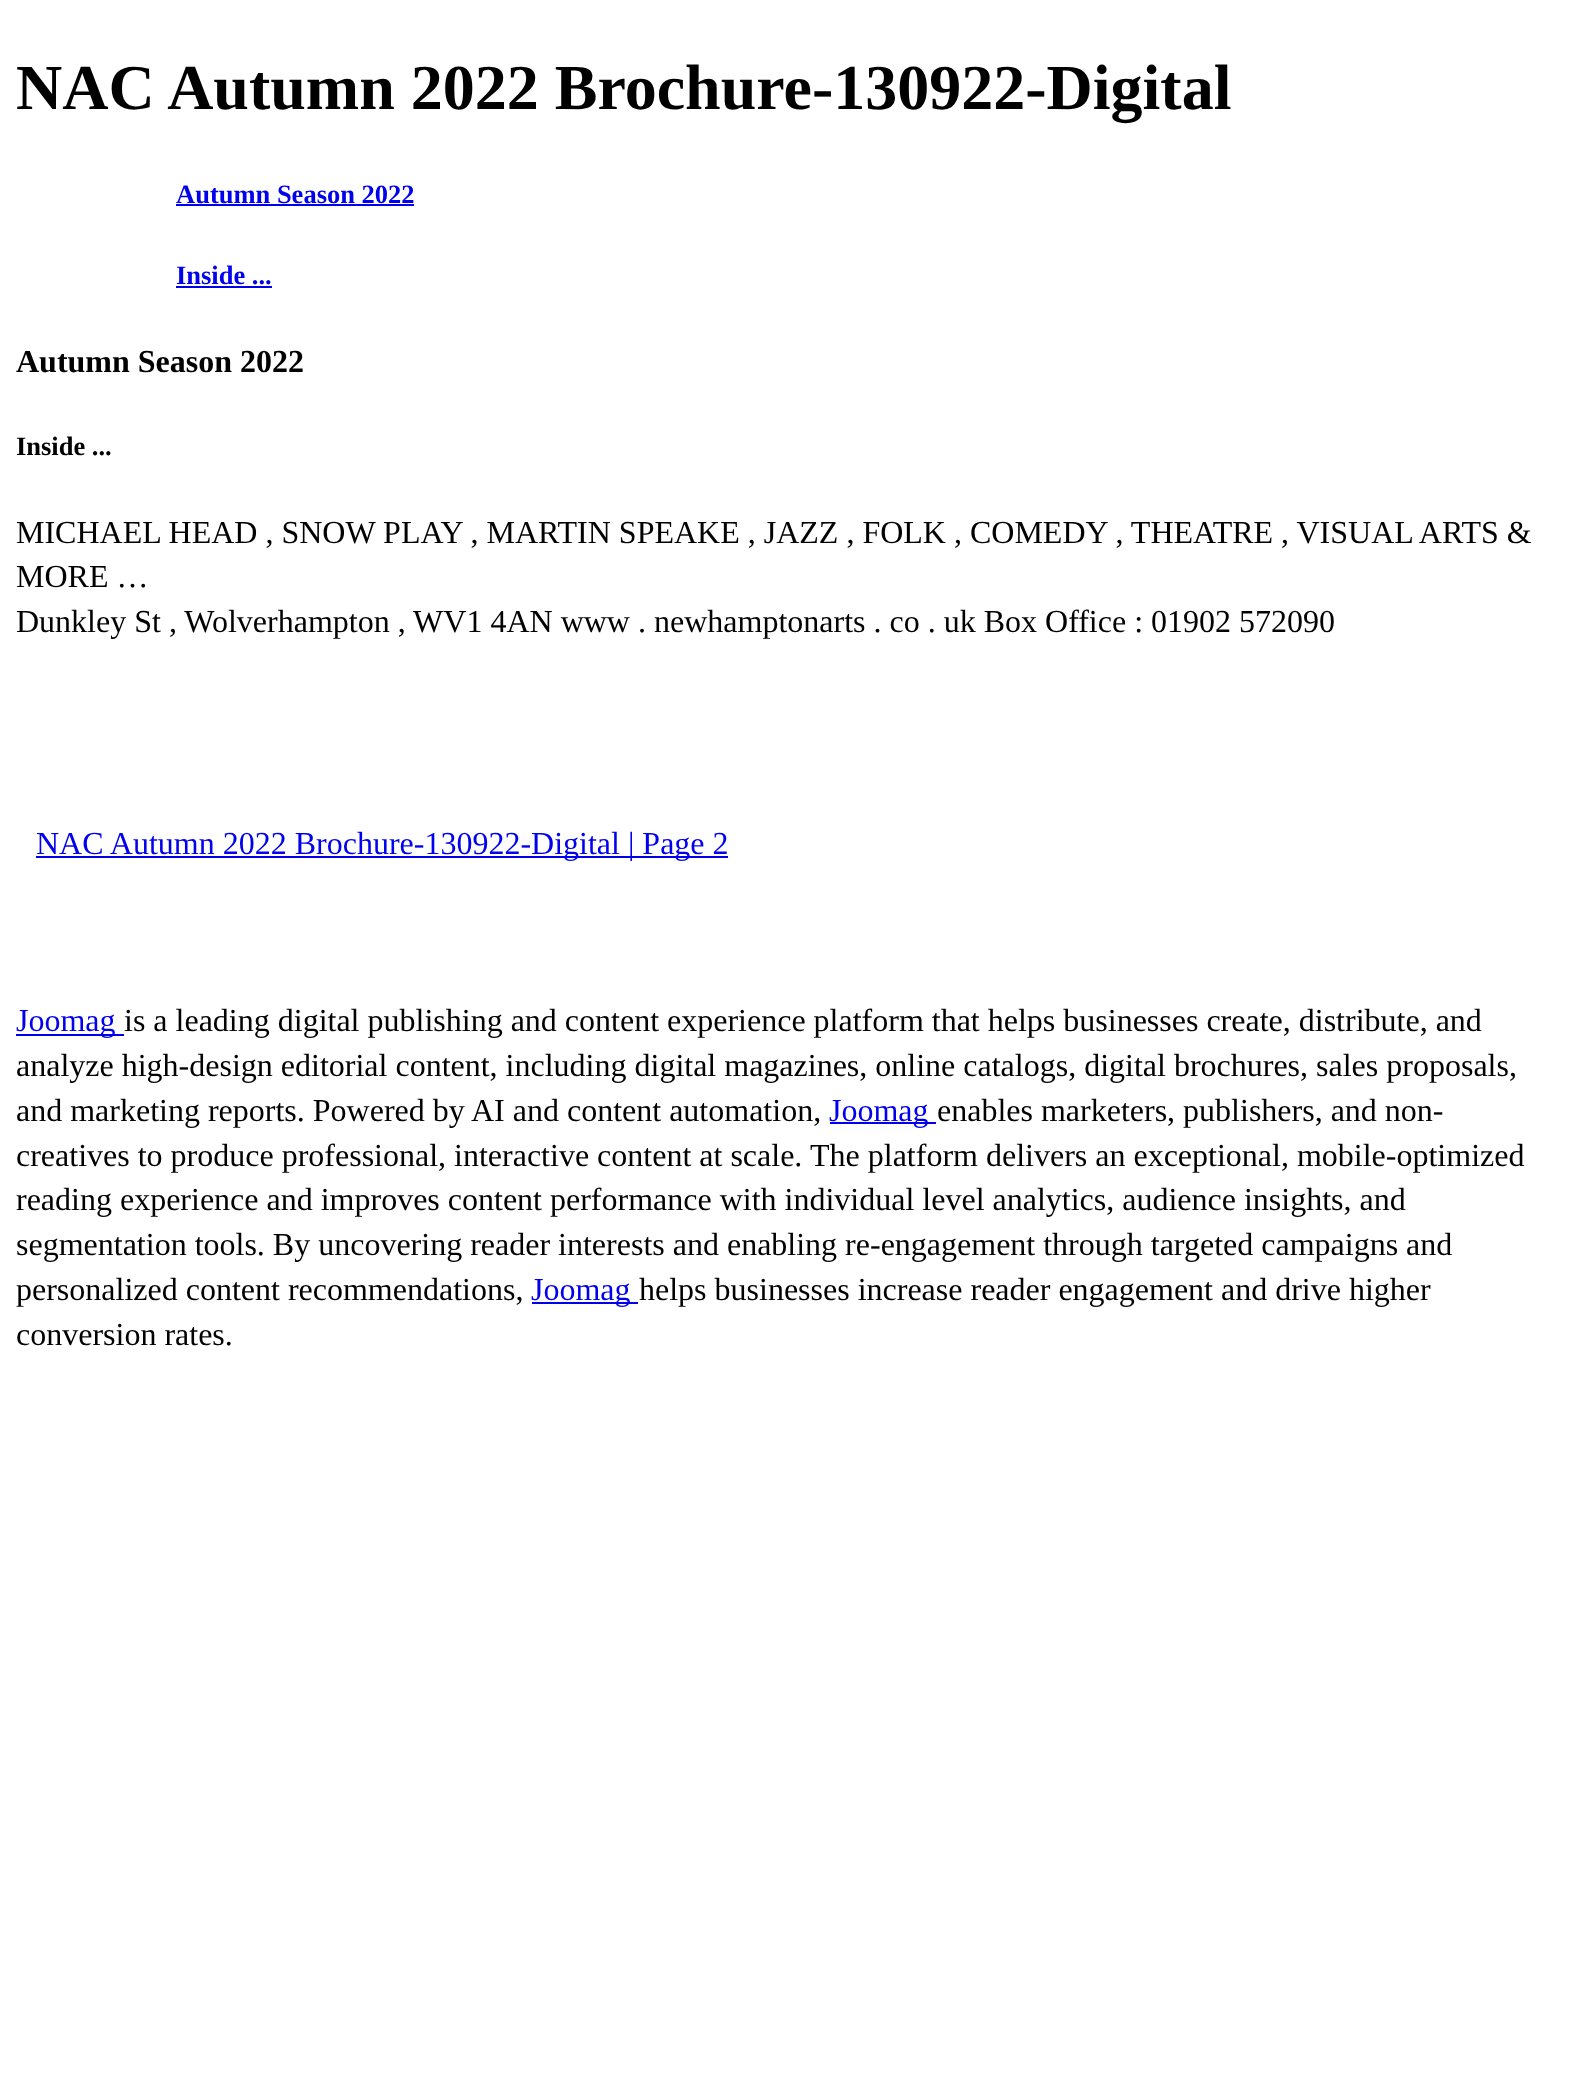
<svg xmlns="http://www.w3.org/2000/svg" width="1569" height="2076">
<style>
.a{font:bold 64px Liberation Serif;fill:#000}
.b{font:bold 26.5px Liberation Serif;fill:#00e}
.c{font:bold 32px Liberation Serif;fill:#000}
.d{font:bold 26.5px Liberation Serif;fill:#000}
.e{font:32px Liberation Serif;fill:#000}
.f{font:32px Liberation Serif;fill:#00e}
</style>
<rect width="100%" height="100%" fill="#fff"/>
<path fill="#00e" d="M176 204h238v2H176z"/>
<path fill="#00e" d="M176 286h96v2H176z"/>
<path fill="#00e" d="M36 856h692v2H36z"/>
<path fill="#00e" d="M16 1034h108v2H16z"/>
<path fill="#00e" d="M830 1122h106v2H830z"/>
<path fill="#00e" d="M532 1302h106v2H532z"/>
<text class="a" x="16" y="109">NAC Autumn 2022 Brochure-130922-Digital</text>
<text class="b" x="176" y="203">Autumn Season 2022</text>
<text class="b" x="176" y="284">Inside ...</text>
<text class="c" x="16" y="372">Autumn Season 2022</text>
<text class="d" x="16" y="455">Inside ...</text>
<text class="e" x="16" y="543">MICHAEL HEAD , SNOW PLAY , MARTIN SPEAKE , JAZZ , FOLK , COMEDY , THEATRE , VISUAL ARTS &amp;</text>
<text class="e" x="16" y="587">MORE …</text>
<text class="e" x="16" y="632">Dunkley St , Wolverhampton , WV1 4AN www . newhamptonarts . co . uk Box Office : 01902 572090</text>
<text class="f" x="36" y="854">NAC Autumn 2022 Brochure-130922-Digital | Page 2</text>
<text class="f" x="16" y="1031">Joomag</text>
<text class="e" x="124" y="1031">is a leading digital publishing and content experience platform that helps businesses create, distribute, and</text>
<text class="e" x="16" y="1076">analyze high-design editorial content, including digital magazines, online catalogs, digital brochures, sales proposals,</text>
<text class="e" x="16" y="1121">and marketing reports. Powered by AI and content automation,</text>
<text class="f" x="829" y="1121">Joomag</text>
<text class="e" x="937" y="1121">enables marketers, publishers, and non-</text>
<text class="e" x="16" y="1166">creatives to produce professional, interactive content at scale.</text>
<text class="e" x="810" y="1166">The platform delivers an exceptional, mobile-optimized</text>
<text class="e" x="16" y="1210">reading experience and improves content performance with individual level analytics, audience insights, and</text>
<text class="e" x="16" y="1255">segmentation tools. By uncovering reader interests and enabling re-engagement through targeted campaigns and</text>
<text class="e" x="16" y="1300">personalized content recommendations,</text>
<text class="f" x="531" y="1300">Joomag</text>
<text class="e" x="639" y="1300">helps businesses increase reader engagement and drive higher</text>
<text class="e" x="16" y="1345">conversion rates.</text>
</svg>
